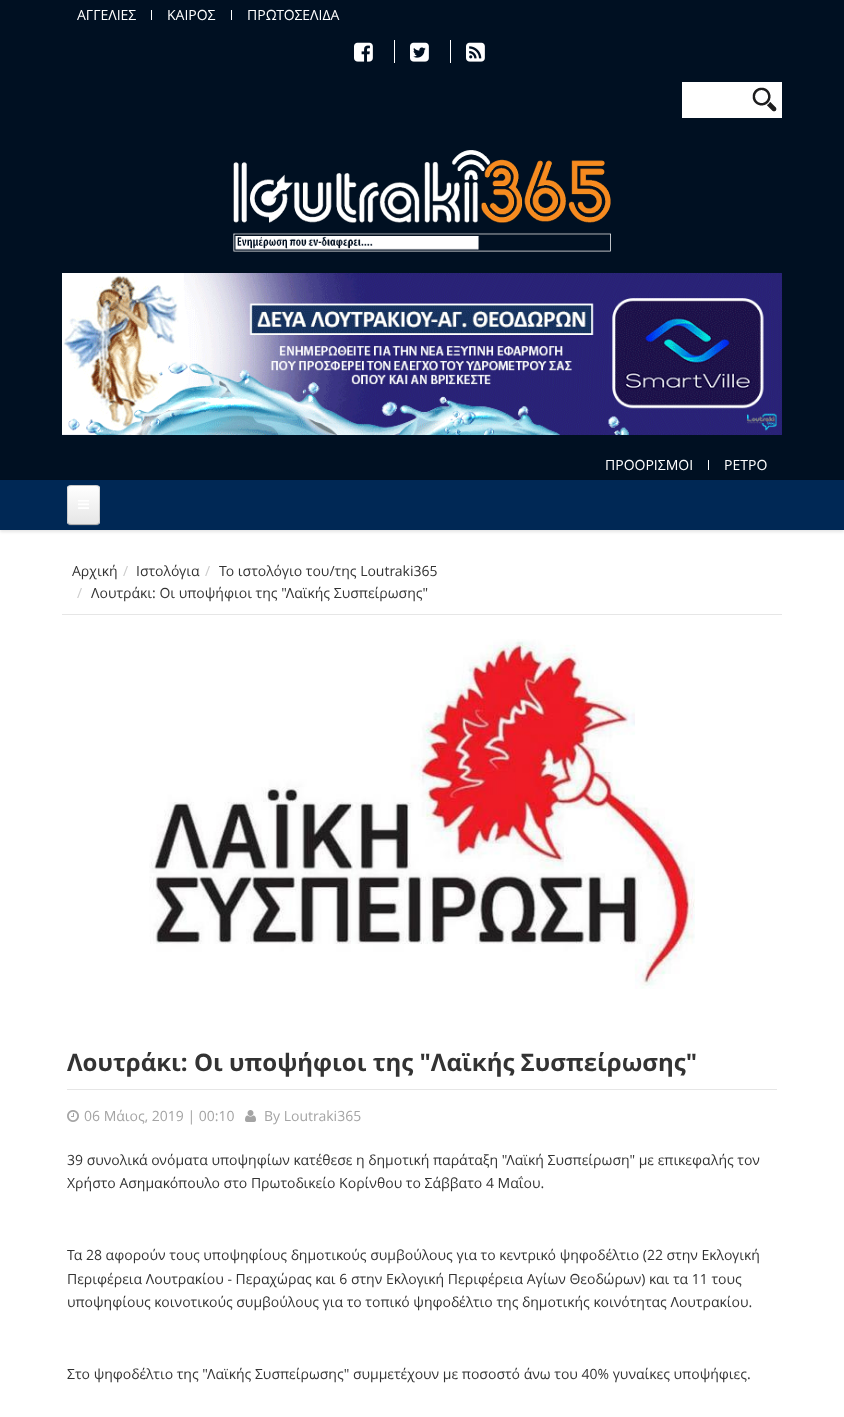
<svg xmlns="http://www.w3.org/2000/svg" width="844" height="1417">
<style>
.a{font:14px Open Sans;fill:#fff}
.b{font:14px Open Sans;fill:#333}
.c{font:14px Open Sans;fill:#ccc}
.d{font:bold 24px Open Sans;fill:#333}
.e{font:14px Open Sans;fill:#a4a4a4}
</style>
<defs>
<clipPath id="clip1"><rect x="67" y="485" width="33" height="40" rx="4"/></clipPath>
<linearGradient id="g1" gradientUnits="userSpaceOnUse" x1="84" y1="486" x2="84" y2="524"><stop offset="0" stop-color="#fff"/><stop offset="1" stop-color="#e6e6e6"/></linearGradient>
</defs>
<rect width="100%" height="100%" fill="#fff"/>
<path fill="#001022" d="M0 0h844v480H0z"/>
<path fill="#fff" d="M151 10h1v10H151z"/>
<path fill="#fff" d="M231 10h1v10H231z"/>
<path fill="#fff" d="M394 40h1v23H394z"/>
<image href="1.png" x="354" y="42" width="19" height="20"/>
<path fill="#fff" d="M450 40h1v23H450z"/>
<image href="2.png" x="410" y="42" width="19" height="20"/>
<image href="3.png" x="466" y="42" width="19" height="20"/>
<path fill="#fff" d="M682 82h100v36H682z"/>
<image href="4.png" x="752" y="87" width="25" height="25"/>
<image href="5.png" x="233" y="150" width="378" height="102"/>
<image href="6.png" x="62" y="273" width="720" height="162"/>
<path fill="#fff" d="M708 460h1v10H708z"/>
<path fill="#0000001a" filter="blur(1.5px)" d="M0 482h844v50H0z"/>
<path fill="#002855" d="M0 480h844v50H0z"/>
<path fill="#133862" d="M67 521c0 5.5 3.5 5 8 5h17c4.5 0 8 .5 8-5c0 2-2 4-4 4h-25c-2 0-4-2-4-4z"/>
<rect fill="#e8e8e8" x="67" y="485" width="33" height="40" rx="4"/>
<g clip-path="url(#clip1)">
<path fill="url(#g1)" d="M67 486h33v38H67z"/>
</g>
<path fill="none" stroke="#00000040" d="M98.5 523.5c-.5 .5-1.5 1-2.5 1h-25c-1 0-2-.5-2.5-1"/>
<path fill="none" stroke="#00000026" d="M68.5 523.5c-2-2-1-6-1-8v-21c0-8.5-.5-9 7.5-9h17c8 0 7.5 .5 7.5 9v21c0 2 1 6-1 8"/>
<image href="7.png" x="78" y="500" width="11" height="9"/>
<path fill="#e6e6e6" d="M62 614h720v1H62z"/>
<image href="8.png" x="149" y="639" width="546" height="350"/>
<path fill="#e6e6e6" d="M67 1089h710v1H67z"/>
<image href="9.png" x="67" y="1110" width="12" height="12"/>
<image href="10.png" x="245" y="1110" width="11" height="12"/>
<text class="a" x="77" y="20">ΑΓΓΕΛΙΕΣ</text>
<text class="a" x="167" y="20">ΚΑΙΡΟΣ</text>
<text class="a" x="247" y="20">ΠΡΩΤΟΣΕΛΙΔΑ</text>
<text class="a" x="605" y="470">ΠΡΟΟΡΙΣΜΟΙ</text>
<text class="a" x="724" y="470">ΡΕΤΡΟ</text>
<text class="b" x="72" y="576">Αρχική</text>
<text class="c" x="123" y="576">/</text>
<text class="b" x="136" y="576">Ιστολόγια</text>
<text class="c" x="205" y="576">/</text>
<text class="b" x="219" y="576">Το ιστολόγιο του/της Loutraki365</text>
<text class="c" x="77" y="598">/</text>
<text class="b" x="91" y="598">Λουτράκι: Οι υποψήφιοι της "Λαϊκής Συσπείρωσης"</text>
<text class="d" x="67" y="1071">Λουτράκι: Οι υποψήφιοι της "Λαϊκής Συσπείρωσης"</text>
<text class="e" x="84" y="1121">06 Μάιος, 2019 | 00:10</text>
<text class="e" x="264" y="1121">By Loutraki365</text>
<text class="b" x="67" y="1165">39 συνολικά ονόματα υποψηφίων κατέθεσε η δημοτική παράταξη "Λαϊκή Συσπείρωση" με επικεφαλής τον</text>
<text class="b" x="67" y="1188">Χρήστο Ασημακόπουλο στο Πρωτοδικείο Κορίνθου το Σάββατο 4 Μαΐου.</text>
<text class="b" x="67" y="1260">Τα 28 αφορούν τους υποψηφίους δημοτικούς συμβούλους για το κεντρικό ψηφοδέλτιο (22 στην Εκλογική</text>
<text class="b" x="67" y="1284">Περιφέρεια Λουτρακίου - Περαχώρας και 6 στην Εκλογική Περιφέρεια Αγίων Θεοδώρων) και τα 11 τους</text>
<text class="b" x="67" y="1307">υποψηφίους κοινοτικούς συμβούλους για το τοπικό ψηφοδέλτιο της δημοτικής κοινότητας Λουτρακίου.</text>
<text class="b" x="67" y="1379">Στο ψηφοδέλτιο της "Λαϊκής Συσπείρωσης" συμμετέχουν με ποσοστό άνω του 40% γυναίκες υποψήφιες.</text>
</svg>
